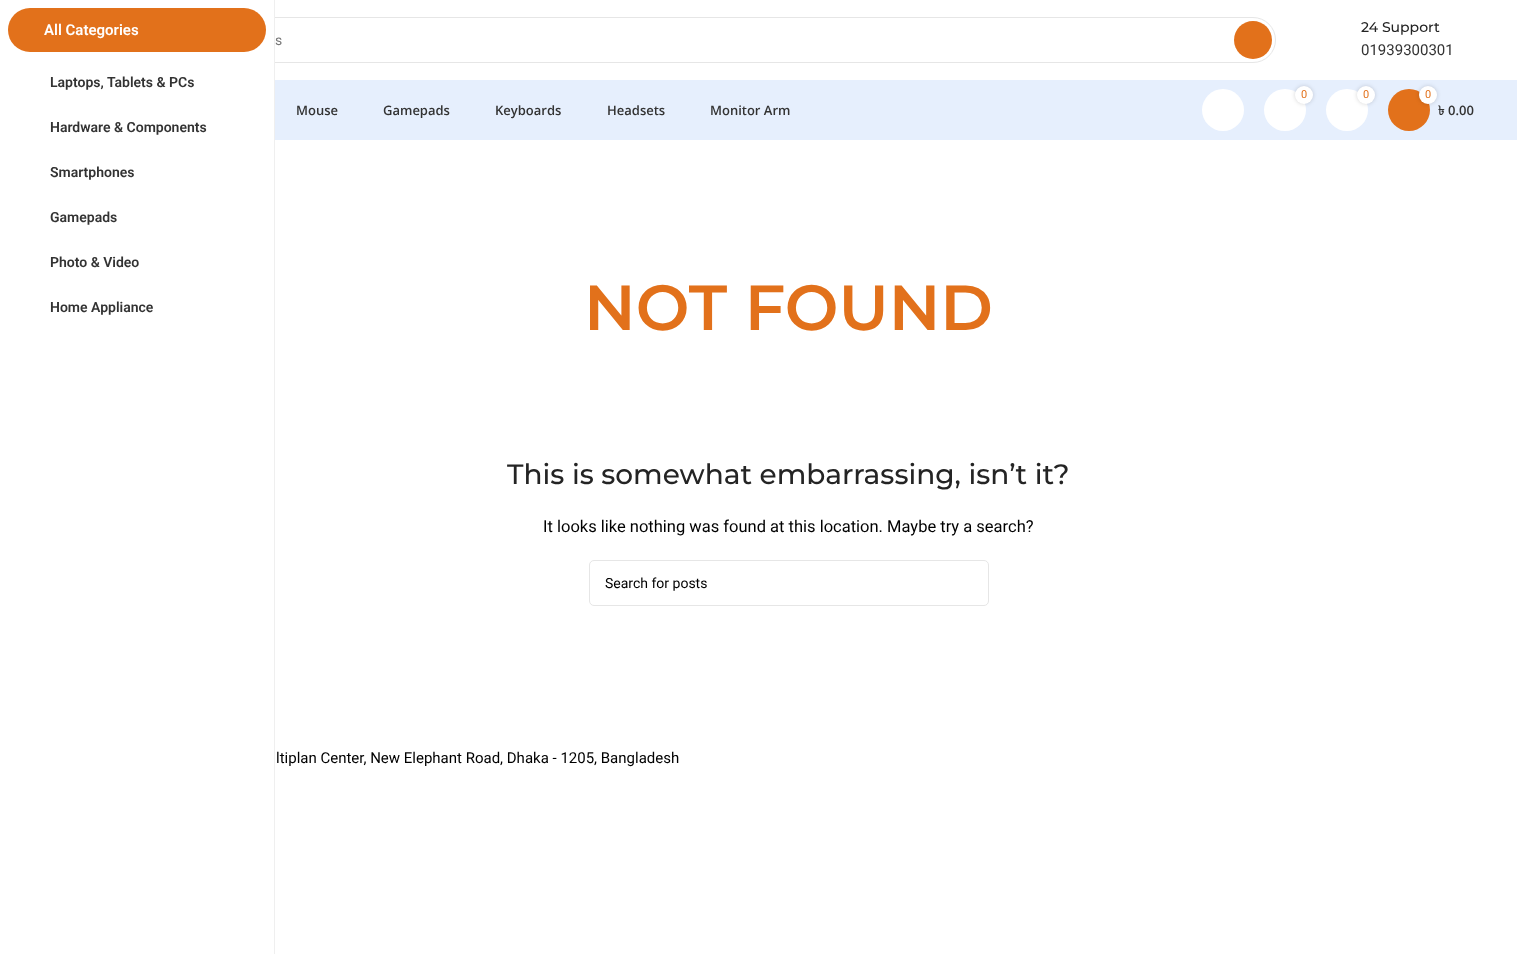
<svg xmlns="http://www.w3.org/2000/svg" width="1517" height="954">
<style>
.a{font:600 15px Roboto;fill:#fff}
.b{font:600 14px Roboto;fill:#333}
.c{font:14px Roboto;fill:#767676}
.d{font:500 14px Montserrat;fill:#242424}
.e{font:15px Roboto;fill:#333}
.f{font:600 13px Open Sans;fill:#333}
.g{font:11px Roboto;fill:#e2711b}
.h{font:bold 13px Lohit Bengali;fill:#333}
.i{font:600 63.75px Montserrat;fill:#e2711b}
.j{font:500 28px Montserrat;fill:#242424}
.k{font:16.5px Roboto;fill:#000}
.l{font:14px Roboto;fill:#000}
.m{font:15px Roboto;fill:#000}
</style>
<rect width="100%" height="100%" fill="#fff"/>
<rect fill="none" stroke="#e6e6e6" x="144.5" y="17.5" width="1131" height="45" rx="22.5"/>
<path fill="#fff" d="M144 17h130v46H144z"/>
<path fill="#efefef" d="M274 0h1v954H274z"/>
<rect fill="#e2711b" x="8" y="8" width="258" height="44" rx="22"/>
<circle fill="#e2711b" cx="1253" cy="40" r="19"/>
<path fill="#e6effd" d="M275 80h1242v60H275z"/>
<circle fill="#fff" cx="1223" cy="110" r="21"/>
<circle fill="#fff" cx="1285" cy="110" r="21"/>
<rect fill="#0000002b" filter="blur(2px)" x="1295" y="86" width="18" height="18" rx="9"/>
<circle fill="#fff" cx="1304" cy="95" r="9"/>
<circle fill="#fff" cx="1347" cy="110" r="21"/>
<rect fill="#0000002b" filter="blur(2px)" x="1357" y="86" width="18" height="18" rx="9"/>
<circle fill="#fff" cx="1366" cy="95" r="9"/>
<circle fill="#e2711b" cx="1409" cy="110" r="21"/>
<rect fill="#0000002b" filter="blur(2px)" x="1419" y="86" width="18" height="18" rx="9"/>
<circle fill="#fff" cx="1428" cy="95" r="9"/>
<rect fill="none" stroke="#e6e6e6" x="589.5" y="560.5" width="399" height="45" rx="4.5"/>
<text class="a" x="44" y="35">All Categories</text>
<text class="b" x="50" y="87">Laptops, Tablets &amp; PCs</text>
<text class="b" x="50" y="132">Hardware &amp; Components</text>
<text class="b" x="50" y="177">Smartphones</text>
<text class="b" x="50" y="222">Gamepads</text>
<text class="b" x="50" y="267">Photo &amp; Video</text>
<text class="b" x="50" y="312">Home Appliance</text>
<text class="c" x="275" y="45">s</text>
<text class="d" x="1361" y="32">24 Support</text>
<text class="e" x="1361" y="55">01939300301</text>
<text class="f" x="296" y="115">Mouse</text>
<text class="f" x="383" y="115">Gamepads</text>
<text class="f" x="495" y="115">Keyboards</text>
<text class="f" x="607" y="115">Headsets</text>
<text class="f" x="710" y="115">Monitor Arm</text>
<text class="g" x="1301" y="98">0</text>
<text class="g" x="1363" y="98">0</text>
<text class="g" x="1425" y="98">0</text>
<text class="h" x="1438" y="115">৳</text>
<text class="f" x="1448" y="115">0.00</text>
<text class="i" x="584" y="330">NOT FOUND</text>
<text class="j" x="507" y="484">This is somewhat embarrassing, isn’t it?</text>
<text class="k" x="543" y="532">It looks like nothing was found at this location. Maybe try a search?</text>
<text class="l" x="605" y="588">Search for posts</text>
<text class="m" x="276" y="763">ltiplan Center, New Elephant Road, Dhaka - 1205, Bangladesh</text>
</svg>
